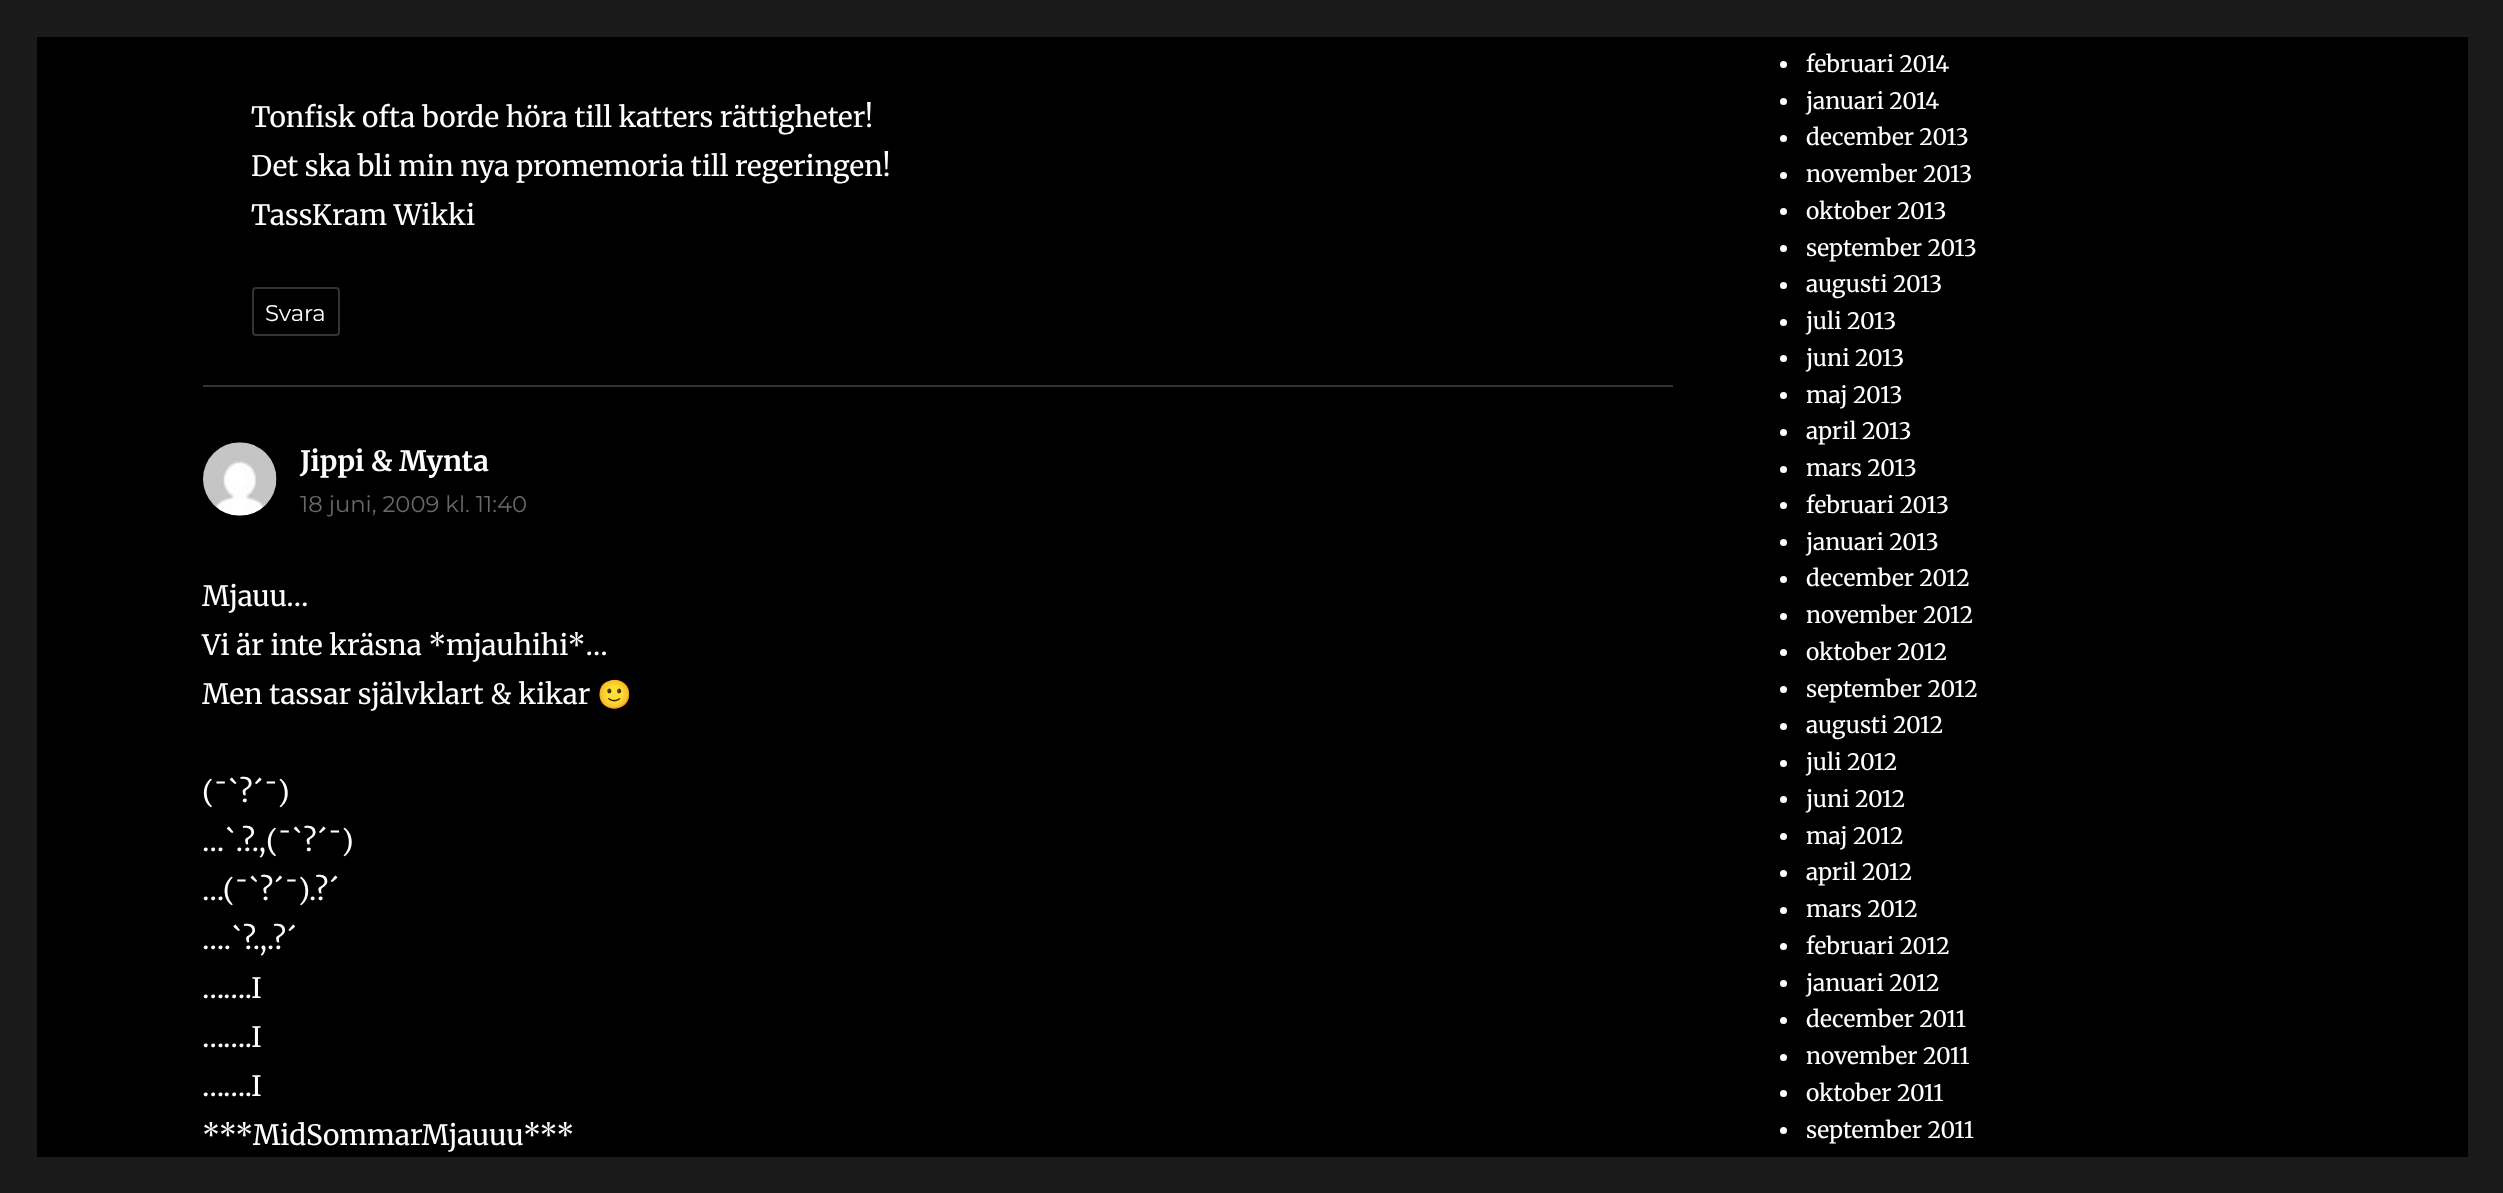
<svg xmlns="http://www.w3.org/2000/svg" width="2503" height="1193">
<style>
.a{font:28px Merriweather;fill:#fff}
.b{font:22.75px Montserrat;fill:#fff}
.c{font:bold 28px Merriweather;fill:#fff}
.d{font:22.75px Montserrat;fill:#686868}
.e{font:28px Noto Color Emoji;fill:#fff}
.f{font:22.75px Merriweather;fill:#fff}
</style>
<rect width="100%" height="100%" fill="#1a1a1a"/>
<path fill="#000" d="M37 37h2431v1120H37z"/>
<rect fill="none" stroke="#333" stroke-width="2" x="253" y="288" width="86" height="47" rx="3"/>
<path fill="#333" d="M203 385h1470v2H203z"/>
<image href="1.png" x="203" y="442" width="74" height="74"/>
<circle fill="#fff" cx="1783.5" cy="64.5" r="3.5"/>
<circle fill="#fff" cx="1783.5" cy="101.5" r="3.5"/>
<circle fill="#fff" cx="1783.5" cy="138.5" r="3.5"/>
<circle fill="#fff" cx="1783.5" cy="175.5" r="3.5"/>
<circle fill="#fff" cx="1783.5" cy="211.5" r="3.5"/>
<circle fill="#fff" cx="1783.5" cy="248.5" r="3.5"/>
<circle fill="#fff" cx="1783.5" cy="285.5" r="3.5"/>
<circle fill="#fff" cx="1783.5" cy="322.5" r="3.5"/>
<circle fill="#fff" cx="1783.5" cy="358.5" r="3.5"/>
<circle fill="#fff" cx="1783.5" cy="395.5" r="3.5"/>
<circle fill="#fff" cx="1783.5" cy="432.5" r="3.5"/>
<circle fill="#fff" cx="1783.5" cy="469.5" r="3.5"/>
<circle fill="#fff" cx="1783.5" cy="505.5" r="3.5"/>
<circle fill="#fff" cx="1783.5" cy="542.5" r="3.5"/>
<circle fill="#fff" cx="1783.5" cy="579.5" r="3.5"/>
<circle fill="#fff" cx="1783.5" cy="616.5" r="3.5"/>
<circle fill="#fff" cx="1783.5" cy="652.5" r="3.5"/>
<circle fill="#fff" cx="1783.5" cy="689.5" r="3.5"/>
<circle fill="#fff" cx="1783.5" cy="726.5" r="3.5"/>
<circle fill="#fff" cx="1783.5" cy="763.5" r="3.5"/>
<circle fill="#fff" cx="1783.5" cy="799.5" r="3.5"/>
<circle fill="#fff" cx="1783.5" cy="836.5" r="3.5"/>
<circle fill="#fff" cx="1783.5" cy="873.5" r="3.5"/>
<circle fill="#fff" cx="1783.5" cy="910.5" r="3.5"/>
<circle fill="#fff" cx="1783.5" cy="946.5" r="3.5"/>
<circle fill="#fff" cx="1783.5" cy="983.5" r="3.5"/>
<circle fill="#fff" cx="1783.5" cy="1020.5" r="3.5"/>
<circle fill="#fff" cx="1783.5" cy="1057.5" r="3.5"/>
<circle fill="#fff" cx="1783.5" cy="1093.5" r="3.5"/>
<circle fill="#fff" cx="1783.5" cy="1130.5" r="3.5"/>
<text class="a" x="251" y="127">Tonfisk ofta borde höra till katters rättigheter!</text>
<text class="a" x="251" y="176">Det ska bli min nya promemoria till regeringen!</text>
<text class="a" x="251" y="225">TassKram Wikki</text>
<text class="b" x="265" y="321">Svara</text>
<text class="c" x="300" y="471">Jippi &amp; Mynta</text>
<text class="d" x="300" y="512">18 juni, 2009 kl. 11:40</text>
<text class="a" x="202" y="606">Mjauu…</text>
<text class="a" x="202" y="655">Vi är inte kräsna *mjauhihi*…</text>
<text class="a" x="202" y="704">Men tassar självklart &amp; kikar</text>
<text class="e" x="597" y="704">🙂</text>
<text class="a" x="202" y="802">(¯`?´¯)</text>
<text class="a" x="202" y="851">…`.?.,(¯`?´¯)</text>
<text class="a" x="202" y="900">…(¯`?´¯).?´</text>
<text class="a" x="202" y="949">….`?.,.?´</text>
<text class="a" x="202" y="998">…….I</text>
<text class="a" x="202" y="1047">…….I</text>
<text class="a" x="202" y="1096">…….I</text>
<text class="a" x="202" y="1145">***MidSommarMjauuu***</text>
<text class="f" x="1806" y="72">februari 2014</text>
<text class="f" x="1806" y="109">januari 2014</text>
<text class="f" x="1806" y="145">december 2013</text>
<text class="f" x="1806" y="182">november 2013</text>
<text class="f" x="1806" y="219">oktober 2013</text>
<text class="f" x="1806" y="256">september 2013</text>
<text class="f" x="1806" y="292">augusti 2013</text>
<text class="f" x="1806" y="329">juli 2013</text>
<text class="f" x="1806" y="366">juni 2013</text>
<text class="f" x="1806" y="403">maj 2013</text>
<text class="f" x="1806" y="439">april 2013</text>
<text class="f" x="1806" y="476">mars 2013</text>
<text class="f" x="1806" y="513">februari 2013</text>
<text class="f" x="1806" y="550">januari 2013</text>
<text class="f" x="1806" y="586">december 2012</text>
<text class="f" x="1806" y="623">november 2012</text>
<text class="f" x="1806" y="660">oktober 2012</text>
<text class="f" x="1806" y="697">september 2012</text>
<text class="f" x="1806" y="733">augusti 2012</text>
<text class="f" x="1806" y="770">juli 2012</text>
<text class="f" x="1806" y="807">juni 2012</text>
<text class="f" x="1806" y="844">maj 2012</text>
<text class="f" x="1806" y="880">april 2012</text>
<text class="f" x="1806" y="917">mars 2012</text>
<text class="f" x="1806" y="954">februari 2012</text>
<text class="f" x="1806" y="991">januari 2012</text>
<text class="f" x="1806" y="1027">december 2011</text>
<text class="f" x="1806" y="1064">november 2011</text>
<text class="f" x="1806" y="1101">oktober 2011</text>
<text class="f" x="1806" y="1138">september 2011</text>
</svg>
